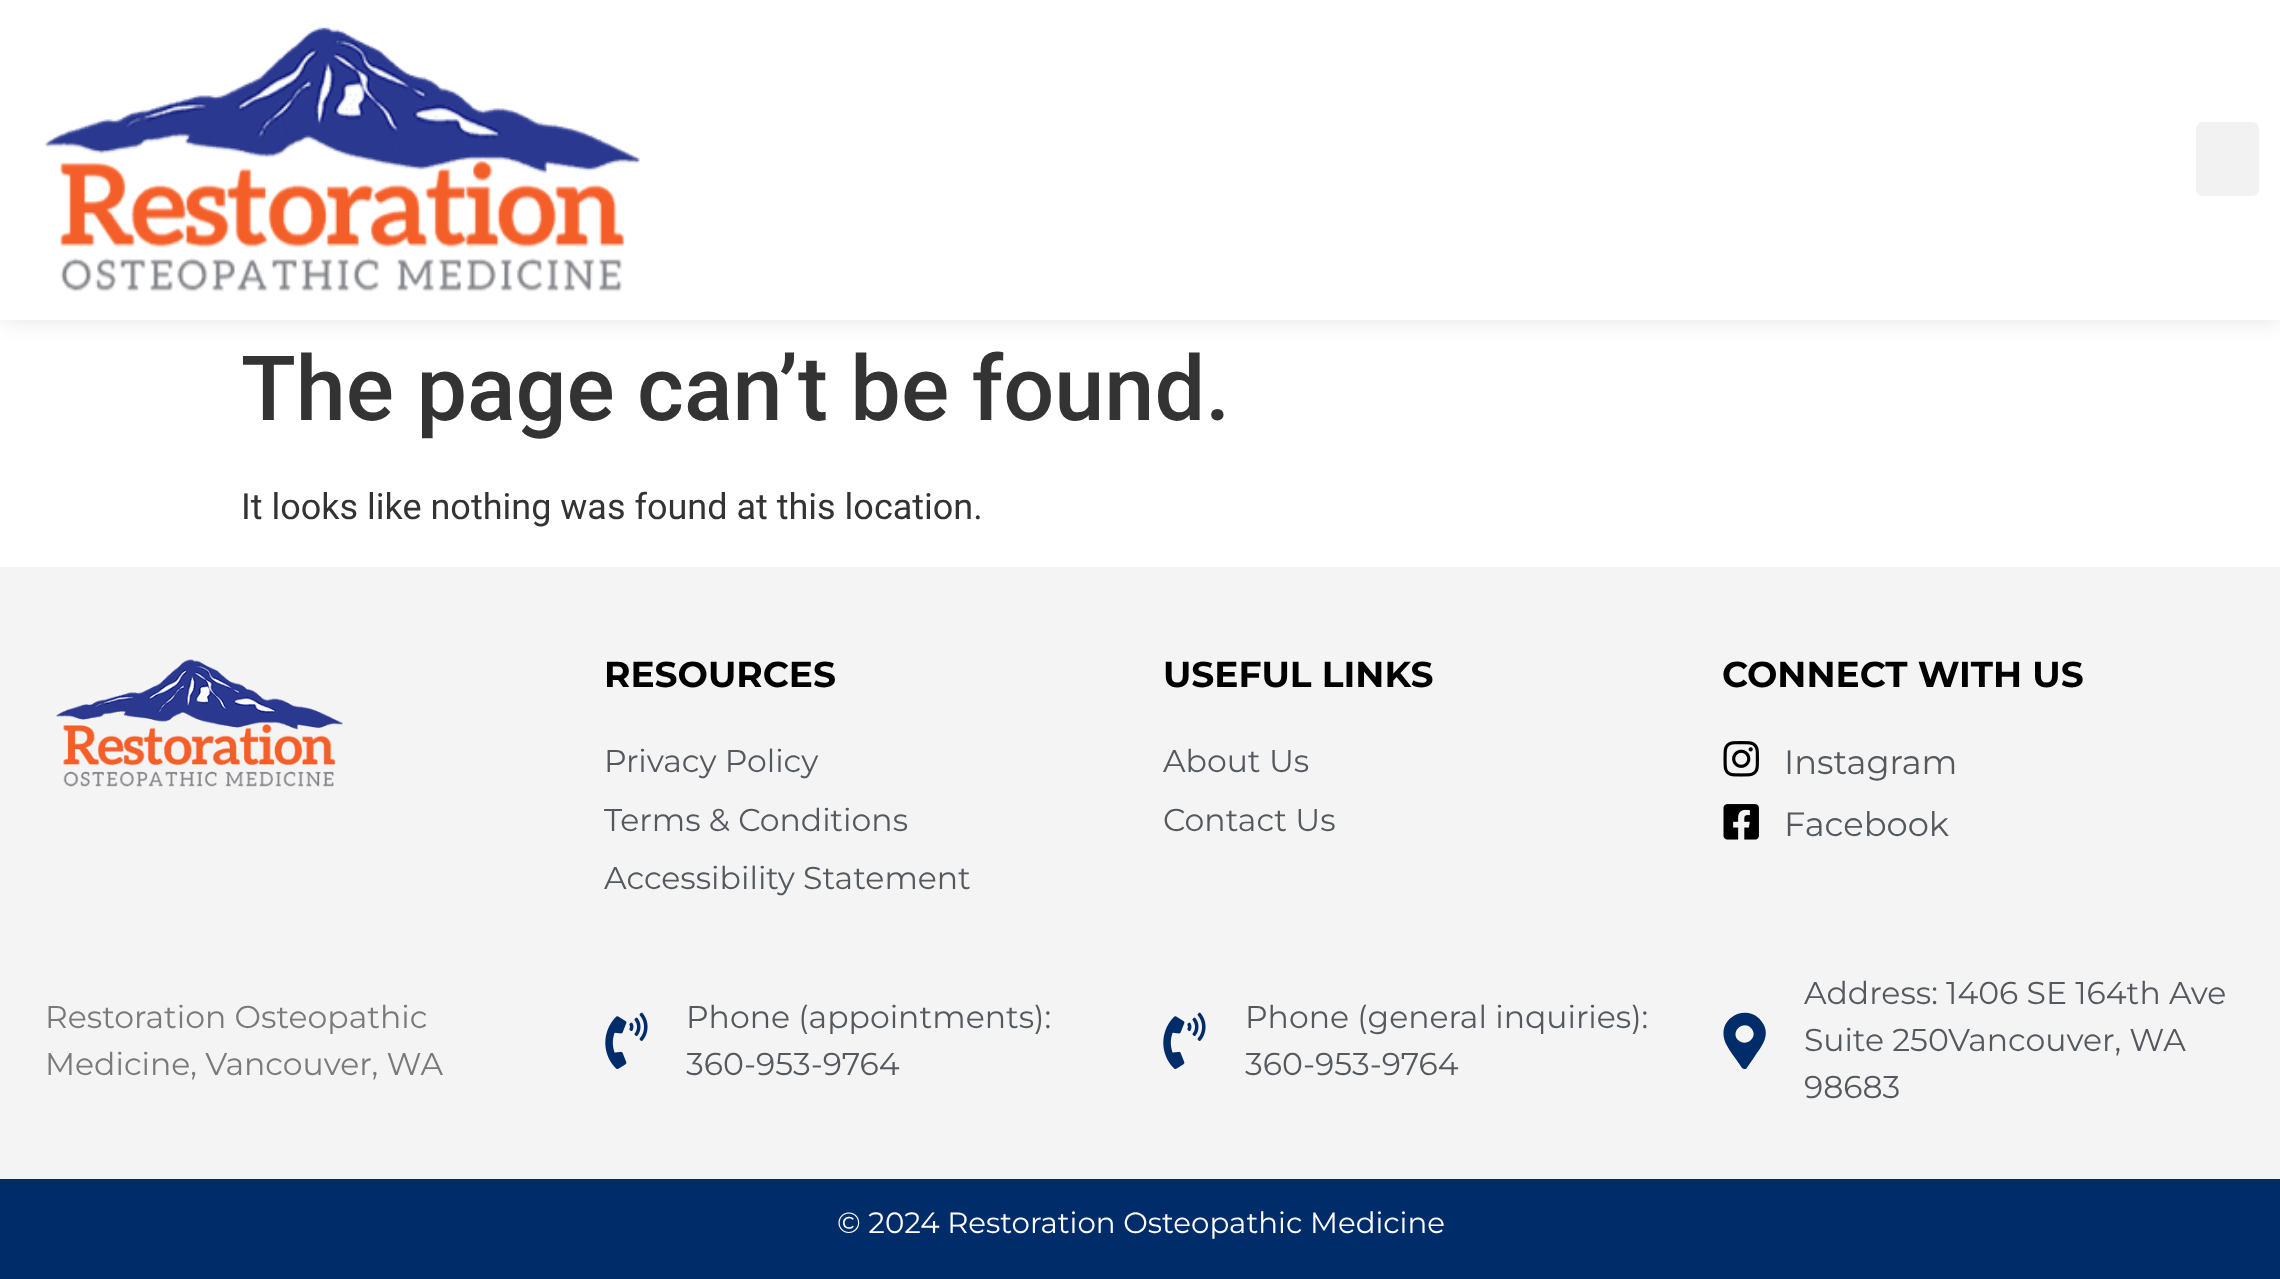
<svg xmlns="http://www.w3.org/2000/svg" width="2280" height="1279">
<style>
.a{font:500 90px Roboto;fill:#333}
.b{font:36px Roboto;fill:#333}
.c{font:bold 36px Montserrat;fill:#000}
.d{font:31.5px Montserrat;fill:#54595f}
.e{font:33.75px Montserrat;fill:#54595f}
.f{font:31.5px Montserrat;fill:#7a7a7a}
.g{font:29.25px Montserrat;fill:#fff}
</style>
<rect width="100%" height="100%" fill="#fff"/>
<path fill="#0000001a" filter="blur(11px)" d="M0 0h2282v320H0z"/>
<path fill="#fff" d="M0 0h2280v320H0z"/>
<image href="1.png" x="44" y="27" width="596" height="265"/>
<rect fill="#f2f2f2" x="2196" y="122" width="63" height="74" rx="7"/>
<path fill="#f4f4f4" d="M0 567h2280v612H0z"/>
<image href="2.png" x="56" y="659" width="287" height="128"/>
<image href="3.png" x="1723" y="741" width="36" height="36"/>
<image href="4.png" x="1723" y="804" width="36" height="36"/>
<image href="5.png" x="605" y="1012" width="43" height="57"/>
<image href="5.png" x="1163" y="1012" width="43" height="57"/>
<path fill="#002c6a" d="M1742 1068c-4-7-17-22-18-30c-5-22 25-35 38-16c10 14-2 26-9 37l-7 10c-1 0-3 0-4-1zm-4-28c9 8 21-4 13-12c-8-8-21 4-13 12z"/>
<path fill="#002c6a" d="M0 1179h2280v100H0z"/>
<text class="a" x="241" y="420">The page can’t be found.</text>
<text class="b" x="241" y="519">It looks like nothing was found at this location.</text>
<text class="c" x="604" y="687">RESOURCES</text>
<text class="d" x="604" y="772">Privacy Policy</text>
<text class="d" x="604" y="831">Terms &amp; Conditions</text>
<text class="d" x="604" y="889">Accessibility Statement</text>
<text class="c" x="1163" y="687">USEFUL LINKS</text>
<text class="d" x="1163" y="772">About Us</text>
<text class="d" x="1163" y="831">Contact Us</text>
<text class="c" x="1722" y="687">CONNECT WITH US</text>
<text class="e" x="1784" y="774">Instagram</text>
<text class="e" x="1784" y="836">Facebook</text>
<text class="f" x="45" y="1028">Restoration Osteopathic</text>
<text class="f" x="45" y="1075">Medicine, Vancouver, WA</text>
<text class="d" x="686" y="1028">Phone (appointments):</text>
<text class="d" x="686" y="1075">360-953-9764</text>
<text class="d" x="1245" y="1028">Phone (general inquiries):</text>
<text class="d" x="1245" y="1075">360-953-9764</text>
<text class="d" x="1804" y="1004">Address: 1406 SE 164th Ave</text>
<text class="d" x="1804" y="1051">Suite 250Vancouver, WA</text>
<text class="d" x="1804" y="1098">98683</text>
<text class="g" x="837" y="1233">© 2024 Restoration Osteopathic Medicine</text>
</svg>
